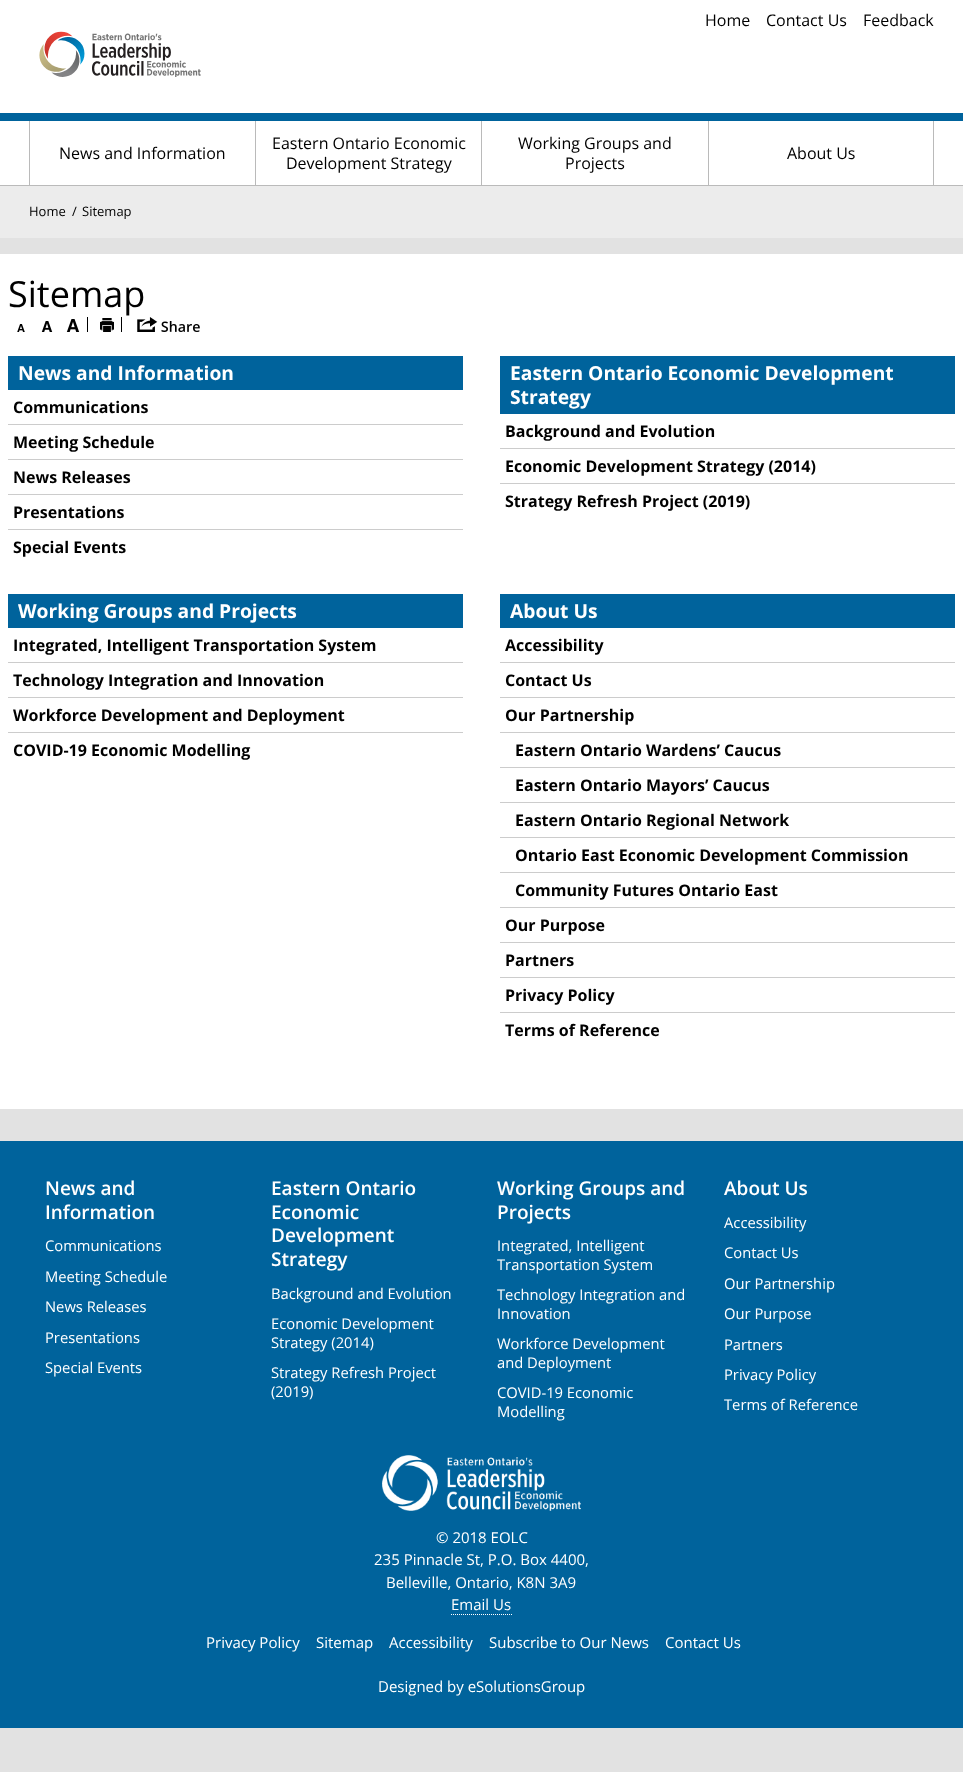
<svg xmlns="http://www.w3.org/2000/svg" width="963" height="1772">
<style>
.a{font:16px Open Sans;fill:#000}
.b{font:13px Open Sans;fill:#000}
.c{font:36px Open Sans;fill:#000}
.d{font:bold 19.25px Open Sans;fill:#fff}
.e{font:bold 16px Open Sans;fill:#000}
.f{font:600 19px Open Sans;fill:#fff}
.g{font:14.75px Open Sans;fill:#fff}
.h{font:15px Open Sans;fill:#fff}
</style>
<rect width="100%" height="100%" fill="#e2e2e2"/>
<path fill="#fff" d="M0 0h963v185H0z"/>
<image href="1.png" x="39" y="31" width="162" height="46"/>
<path fill="#00639c" d="M0 113h963v8H0z"/>
<path fill="#bababa" d="M0 185h963v1H0z"/>
<path fill="#bababa" d="M29 121h1v64H29z"/>
<path fill="#bababa" d="M255 121h1v64H255z"/>
<path fill="#bababa" d="M481 121h1v64H481z"/>
<path fill="#bababa" d="M933 121h1v64H933z"/>
<path fill="#bababa" d="M708 121h1v64H708z"/>
<path fill="#ececec" d="M0 186h963v52H0z"/>
<path fill="#fff" d="M0 254h963v855H0z"/>
<image href="2.png" x="17" y="324" width="8" height="8"/>
<image href="3.png" x="41" y="321" width="12" height="11"/>
<image href="4.png" x="66" y="319" width="14" height="13"/>
<path fill="#000" d="M87 317h1v15H87z"/>
<image href="5.png" x="100" y="318" width="14" height="14"/>
<path fill="#000" d="M121 317h1v15H121z"/>
<image href="6.png" x="137" y="317" width="63" height="15"/>
<path fill="#00639c" d="M8 356h455v34H8z"/>
<path fill="#ccc" d="M8 424h455v1H8z"/>
<path fill="#ccc" d="M8 459h455v1H8z"/>
<path fill="#ccc" d="M8 494h455v1H8z"/>
<path fill="#ccc" d="M8 529h455v1H8z"/>
<path fill="#00639c" d="M500 356h455v58H500z"/>
<path fill="#ccc" d="M500 448h455v1H500z"/>
<path fill="#ccc" d="M500 483h455v1H500z"/>
<path fill="#00639c" d="M8 594h455v34H8z"/>
<path fill="#ccc" d="M8 662h455v1H8z"/>
<path fill="#ccc" d="M8 697h455v1H8z"/>
<path fill="#ccc" d="M8 732h455v1H8z"/>
<path fill="#00639c" d="M500 594h455v34H500z"/>
<path fill="#ccc" d="M500 662h455v1H500z"/>
<path fill="#ccc" d="M500 697h455v1H500z"/>
<path fill="#ccc" d="M500 732h455v1H500z"/>
<path fill="#ccc" d="M500 767h455v1H500z"/>
<path fill="#ccc" d="M500 802h455v1H500z"/>
<path fill="#ccc" d="M500 837h455v1H500z"/>
<path fill="#ccc" d="M500 872h455v1H500z"/>
<path fill="#ccc" d="M500 907h455v1H500z"/>
<path fill="#ccc" d="M500 942h455v1H500z"/>
<path fill="#ccc" d="M500 977h455v1H500z"/>
<path fill="#ccc" d="M500 1012h455v1H500z"/>
<path fill="#00639c" d="M0 1141h963v587H0z"/>
<image href="7.png" x="382" y="1455" width="199" height="56"/>
<path fill="none" stroke="#fff" stroke-dasharray="1 1" d="M451 1614.5h61"/>
<text class="a" x="705" y="26">Home</text>
<text class="a" x="766" y="26">Contact Us</text>
<text class="a" x="863" y="26">Feedback</text>
<text class="a" x="59" y="159">News and Information</text>
<text class="a" x="272" y="149">Eastern Ontario Economic</text>
<text class="a" x="286" y="169">Development Strategy</text>
<text class="a" x="518" y="149">Working Groups and</text>
<text class="a" x="565" y="169">Projects</text>
<text class="a" x="787" y="159">About Us</text>
<text class="b" x="29" y="216">Home</text>
<text class="b" x="72" y="216">/</text>
<text class="b" x="82" y="216">Sitemap</text>
<text class="c" x="8" y="307">Sitemap</text>
<text class="d" x="18" y="380">News and Information</text>
<text class="e" x="13" y="413">Communications</text>
<text class="e" x="13" y="448">Meeting Schedule</text>
<text class="e" x="13" y="483">News Releases</text>
<text class="e" x="13" y="518">Presentations</text>
<text class="e" x="13" y="553">Special Events</text>
<text class="d" x="510" y="380">Eastern Ontario Economic Development</text>
<text class="d" x="510" y="404">Strategy</text>
<text class="e" x="505" y="437">Background and Evolution</text>
<text class="e" x="505" y="472">Economic Development Strategy (2014)</text>
<text class="e" x="505" y="507">Strategy Refresh Project (2019)</text>
<text class="d" x="18" y="618">Working Groups and Projects</text>
<text class="e" x="13" y="651">Integrated, Intelligent Transportation System</text>
<text class="e" x="13" y="686">Technology Integration and Innovation</text>
<text class="e" x="13" y="721">Workforce Development and Deployment</text>
<text class="e" x="13" y="756">COVID-19 Economic Modelling</text>
<text class="d" x="510" y="618">About Us</text>
<text class="e" x="505" y="651">Accessibility</text>
<text class="e" x="505" y="686">Contact Us</text>
<text class="e" x="505" y="721">Our Partnership</text>
<text class="e" x="515" y="756">Eastern Ontario Wardens’ Caucus</text>
<text class="e" x="515" y="791">Eastern Ontario Mayors’ Caucus</text>
<text class="e" x="515" y="826">Eastern Ontario Regional Network</text>
<text class="e" x="515" y="861">Ontario East Economic Development Commission</text>
<text class="e" x="515" y="896">Community Futures Ontario East</text>
<text class="e" x="505" y="931">Our Purpose</text>
<text class="e" x="505" y="966">Partners</text>
<text class="e" x="505" y="1001">Privacy Policy</text>
<text class="e" x="505" y="1036">Terms of Reference</text>
<text class="f" x="45" y="1195">News and</text>
<text class="f" x="45" y="1219">Information</text>
<text class="g" x="45" y="1251">Communications</text>
<text class="g" x="45" y="1282">Meeting Schedule</text>
<text class="g" x="45" y="1312">News Releases</text>
<text class="g" x="45" y="1343">Presentations</text>
<text class="g" x="45" y="1373">Special Events</text>
<text class="f" x="271" y="1195">Eastern Ontario</text>
<text class="f" x="271" y="1219">Economic</text>
<text class="f" x="271" y="1242">Development</text>
<text class="f" x="271" y="1266">Strategy</text>
<text class="g" x="271" y="1299">Background and Evolution</text>
<text class="g" x="271" y="1329">Economic Development</text>
<text class="g" x="271" y="1348">Strategy (2014)</text>
<text class="g" x="271" y="1378">Strategy Refresh Project</text>
<text class="g" x="271" y="1397">(2019)</text>
<text class="f" x="497" y="1195">Working Groups and</text>
<text class="f" x="497" y="1219">Projects</text>
<text class="g" x="497" y="1251">Integrated, Intelligent</text>
<text class="g" x="497" y="1270">Transportation System</text>
<text class="g" x="497" y="1300">Technology Integration and</text>
<text class="g" x="497" y="1319">Innovation</text>
<text class="g" x="497" y="1349">Workforce Development</text>
<text class="g" x="497" y="1368">and Deployment</text>
<text class="g" x="497" y="1398">COVID-19 Economic</text>
<text class="g" x="497" y="1417">Modelling</text>
<text class="f" x="724" y="1195">About Us</text>
<text class="g" x="724" y="1228">Accessibility</text>
<text class="g" x="724" y="1258">Contact Us</text>
<text class="g" x="724" y="1289">Our Partnership</text>
<text class="g" x="724" y="1319">Our Purpose</text>
<text class="g" x="724" y="1350">Partners</text>
<text class="g" x="724" y="1380">Privacy Policy</text>
<text class="g" x="724" y="1410">Terms of Reference</text>
<text class="h" x="436" y="1543">© 2018 EOLC</text>
<text class="h" x="374" y="1565">235 Pinnacle St, P.O. Box 4400,</text>
<text class="h" x="386" y="1588">Belleville, Ontario, K8N 3A9</text>
<text class="h" x="451" y="1610">Email Us</text>
<text class="h" x="206" y="1648">Privacy Policy</text>
<text class="h" x="316" y="1648">Sitemap</text>
<text class="h" x="389" y="1648">Accessibility</text>
<text class="h" x="489" y="1648">Subscribe to Our News</text>
<text class="h" x="665" y="1648">Contact Us</text>
<text class="h" x="378" y="1692">Designed by eSolutionsGroup</text>
</svg>
